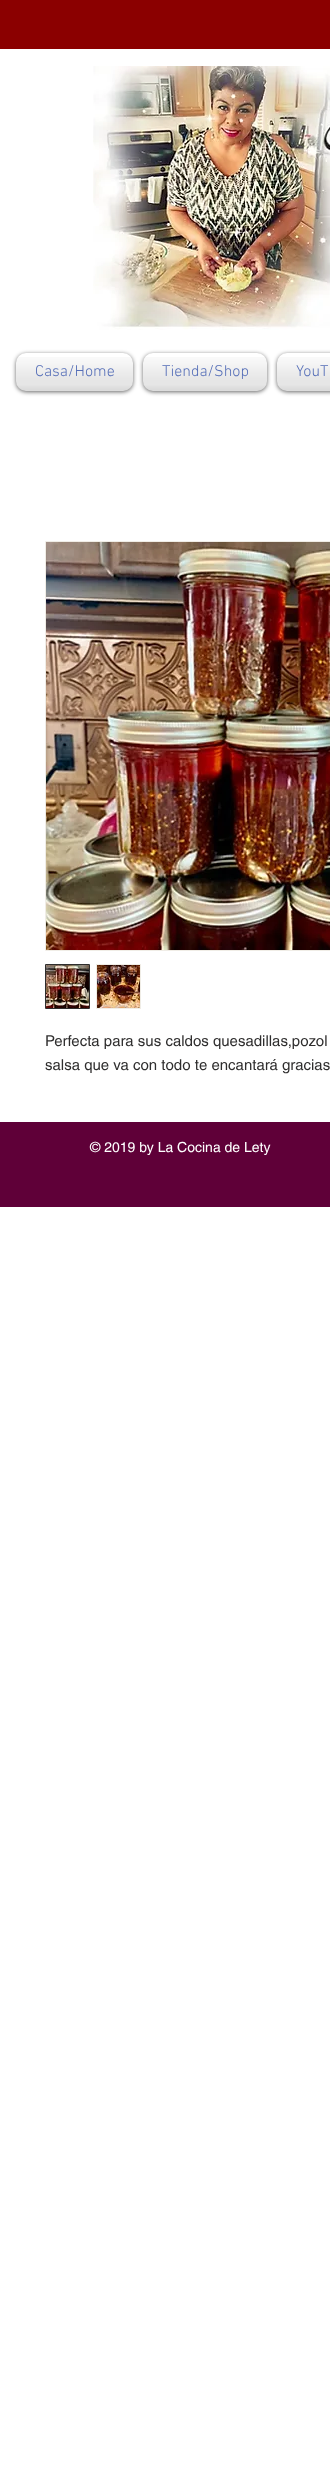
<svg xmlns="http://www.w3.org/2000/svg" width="330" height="2465">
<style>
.a{font:300 16px 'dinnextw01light';fill:#566fb8}
.b{font:15px helvetica;fill:#2f2e2e}
.c{font:14px helvetica;fill:#fff}
</style>
<rect width="100%" height="100%" fill="#fff"/>
<path fill="#8b0000" d="M0 0h330v49H0z"/>
<image href="1.png" x="93" y="66" width="237" height="264"/>
<rect fill="#00000099" filter="blur(2px)" x="16" y="354" width="117" height="38" rx="10"/>
<rect fill="#fff" x="16" y="353" width="117" height="38" rx="10"/>
<image href="2.png" x="16" y="357" width="117" height="34"/>
<rect fill="#00000099" filter="blur(2px)" x="143" y="354" width="124" height="38" rx="10"/>
<rect fill="#fff" x="143" y="353" width="124" height="38" rx="10"/>
<image href="3.png" x="143" y="357" width="124" height="34"/>
<rect fill="#00000099" filter="blur(2px)" x="277" y="354" width="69" height="38" rx="10"/>
<rect fill="#fff" x="277" y="353" width="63" height="38" rx="10"/>
<image href="4.png" x="277" y="357" width="53" height="34"/>
<path fill="none" stroke="#f0ede6" d="M45.5 541.5h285v409H45.5z"/>
<image href="5.png" x="46" y="542" width="284" height="408"/>
<path fill="none" stroke="#2f2e2e" d="M45.5 964.5h44v44H45.5z"/>
<image href="6.png" x="46" y="965" width="43" height="43"/>
<path fill="#f0ede6" d="M96 964h45v45H96z"/>
<image href="7.png" x="97" y="965" width="43" height="43"/>
<path fill="#5f0038" d="M0 1122h330v85H0z"/>
<text class="a" x="35" y="376">Casa/Home</text>
<text class="a" x="162" y="376">Tienda/Shop</text>
<text class="a" x="296" y="376">YouT</text>
<text class="b" x="45" y="1046">Perfecta para sus caldos quesadillas,pozol</text>
<text class="b" x="45" y="1070">salsa que va con todo te encantará gracias</text>
<text class="c" x="90" y="1152">© 2019 by La Cocina de Lety</text>
</svg>
